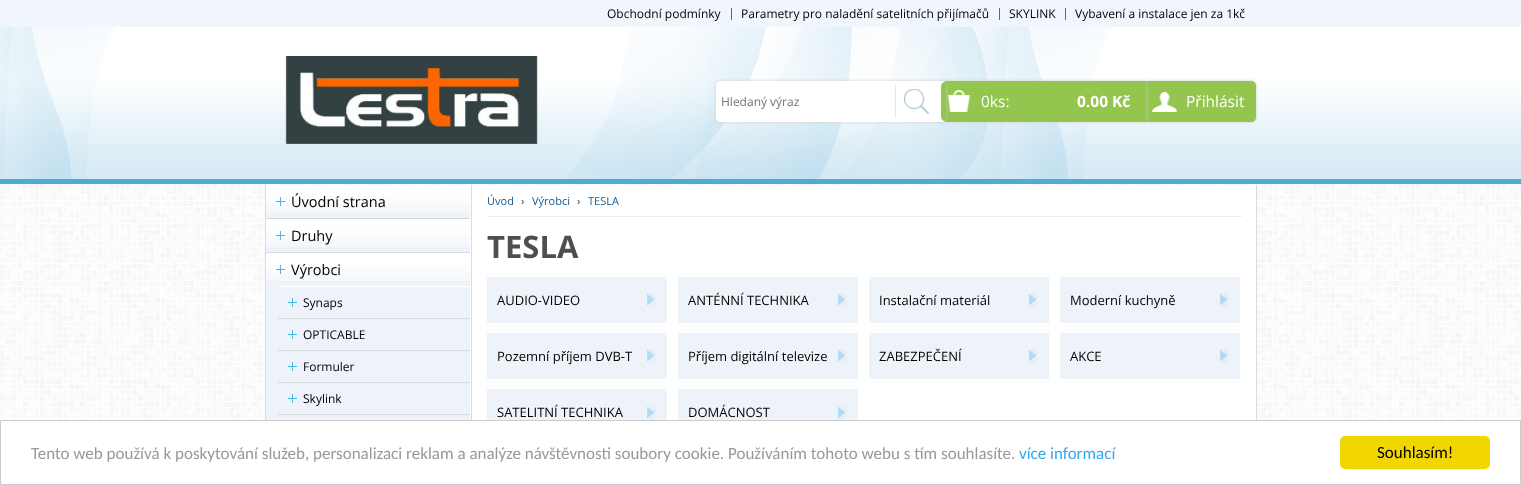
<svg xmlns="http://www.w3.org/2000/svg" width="1521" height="485">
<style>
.a{font:12px Open Sans;fill:#000208}
.b{font:12px Open Sans;fill:#757575}
.c{font:15.5px Open Sans;fill:#fff}
.d{font:bold 15.5px Open Sans;fill:#fff}
.e{font:14.5px Open Sans;fill:#000}
.f{font:12px Open Sans;fill:#000}
.g{font:11px Open Sans;fill:#105a90}
.h{font:11px Open Sans;fill:#313131}
.i{font:bold 31px Open Sans;fill:#4e4e4e}
.j{font:13px Open Sans;fill:#000}
.k{font:17px Carlito;fill:#999}
.l{font:17px Carlito;fill:#31a8f0}
.m{font:17px Carlito;fill:#000}
</style>
<rect width="100%" height="100%" fill="#fff"/>
<image href="1.png" x="0" y="184" width="1521" height="236"/>
<image href="2.png" x="0" y="27" width="1521" height="152"/>
<path fill="#50aad3" d="M0 179h1521v5H0z"/>
<path fill="#f1f6fc" d="M0 0h1521v27H0z"/>
<path fill="#64696f" d="M731 8h1v12H731z"/>
<path fill="#64696f" d="M999 8h1v12H999z"/>
<path fill="#64696f" d="M1065 8h1v12H1065z"/>
<rect fill="#ccc" filter="blur(1.5px)" x="1146" y="81" width="110" height="41" rx="5"/>
<path fill="#94c64f" d="M1146 81h105c3 0 5 2 5 5v31c0 3-2 5-5 5h-105z"/>
<path fill="#ccc" filter="blur(1.5px)" d="M941 81h205v41H941z"/>
<path fill="#94c64f" d="M946 81h200v41H946z"/>
<image href="6.png" x="948" y="90" width="22" height="22"/>
<rect fill="#ccc" filter="blur(1.5px)" x="716" y="81" width="230" height="41" rx="5"/>
<path fill="#fff" d="M721 81h225v41h-225c-3 0-5-2-5-5v-31c0-3 2-5 5-5z"/>
<image href="3.png" x="941" y="81" width="5" height="41"/>
<path fill="#fff" d="M721 81h171v41h-171c-3 0-5-2-5-5v-31c0-3 2-5 5-5z"/>
<image href="4.png" x="895" y="85" width="34" height="33"/>
<image href="5.png" x="285" y="56" width="253" height="88"/>
<image href="7.png" x="1152" y="92" width="25" height="20"/>
<path fill="#fff" d="M470 185h786v235H470z"/>
<path fill="#dcdcdc" d="M1256 185h1v235H1256z"/>
<path fill="#dcdcdc" d="M265 185h1v235H265z"/>
<path fill="#eef3fa" d="M266 213h204v5H266z"/>
<image href="8.png" x="266" y="185" width="204" height="28"/>
<path fill="#d4dae4" d="M266 218h204v1H266z"/>
<image href="9.png" x="276" y="197" width="9" height="9"/>
<path fill="#eef3fa" d="M266 247h204v5H266z"/>
<image href="8.png" x="266" y="219" width="204" height="28"/>
<path fill="#d4dae4" d="M266 252h204v1H266z"/>
<image href="9.png" x="276" y="231" width="9" height="9"/>
<path fill="#eef3fa" d="M266 281h204v139H266z"/>
<image href="8.png" x="266" y="253" width="204" height="28"/>
<image href="9.png" x="276" y="265" width="9" height="9"/>
<path fill="#fff" d="M278 286h192v1H278z"/>
<path fill="#d4dae4" d="M278 318h192v1H278z"/>
<image href="10.png" x="288" y="298" width="9" height="9"/>
<path fill="#d4dae4" d="M278 350h192v1H278z"/>
<image href="10.png" x="288" y="330" width="9" height="9"/>
<path fill="#d4dae4" d="M278 382h192v1H278z"/>
<image href="10.png" x="288" y="362" width="9" height="9"/>
<path fill="#d4dae4" d="M278 414h192v1H278z"/>
<image href="10.png" x="288" y="394" width="9" height="9"/>
<path fill="#dcdcdc" d="M471 185h1v235H471z"/>
<path fill="#ededed" d="M487 216h755v1H487z"/>
<image href="11.png" x="487" y="267" width="180" height="10"/>
<path fill="#eef3fa" d="M487 277h180v46H487z"/>
<image href="12.png" x="647" y="293" width="9" height="14"/>
<image href="11.png" x="678" y="267" width="180" height="10"/>
<path fill="#eef3fa" d="M678 277h180v46H678z"/>
<image href="12.png" x="838" y="293" width="9" height="14"/>
<image href="11.png" x="869" y="267" width="180" height="10"/>
<path fill="#eef3fa" d="M869 277h180v46H869z"/>
<image href="12.png" x="1029" y="293" width="9" height="14"/>
<image href="11.png" x="1060" y="267" width="180" height="10"/>
<path fill="#eef3fa" d="M1060 277h180v46H1060z"/>
<image href="12.png" x="1220" y="293" width="9" height="14"/>
<image href="11.png" x="487" y="323" width="180" height="10"/>
<path fill="#eef3fa" d="M487 333h180v46H487z"/>
<image href="12.png" x="647" y="349" width="9" height="14"/>
<image href="11.png" x="678" y="323" width="180" height="10"/>
<path fill="#eef3fa" d="M678 333h180v46H678z"/>
<image href="12.png" x="838" y="349" width="9" height="14"/>
<image href="11.png" x="869" y="323" width="180" height="10"/>
<path fill="#eef3fa" d="M869 333h180v46H869z"/>
<image href="12.png" x="1029" y="349" width="9" height="14"/>
<image href="11.png" x="1060" y="323" width="180" height="10"/>
<path fill="#eef3fa" d="M1060 333h180v46H1060z"/>
<image href="12.png" x="1220" y="349" width="9" height="14"/>
<image href="11.png" x="487" y="379" width="180" height="10"/>
<path fill="#eef3fa" d="M487 389h180v31H487z"/>
<image href="12.png" x="647" y="406" width="9" height="14"/>
<image href="11.png" x="678" y="379" width="180" height="10"/>
<path fill="#eef3fa" d="M678 389h180v31H678z"/>
<image href="12.png" x="838" y="406" width="9" height="14"/>
<path fill="none" stroke="#ccc" d="M0.5 420.5h1520v64H0.5z"/>
<rect fill="#f1d600" x="1340" y="436" width="150" height="33" rx="5"/>
<text class="a" x="607" y="18">Obchodní podmínky</text>
<text class="a" x="741" y="18">Parametry pro naladění satelitních přijímačů</text>
<text class="a" x="1009" y="18">SKYLINK</text>
<text class="a" x="1075" y="18">Vybavení a instalace jen za 1kč</text>
<text class="b" x="721" y="106">Hledaný výraz</text>
<text class="c" x="981" y="107">0ks:</text>
<text class="d" x="1077" y="107">0.00 Kč</text>
<text class="c" x="1186" y="107">Přihlásit</text>
<text class="e" x="291" y="207">Úvodní strana</text>
<text class="e" x="291" y="241">Druhy</text>
<text class="e" x="291" y="275">Výrobci</text>
<text class="f" x="303" y="307">Synaps</text>
<text class="f" x="303" y="339">OPTICABLE</text>
<text class="f" x="303" y="371">Formuler</text>
<text class="f" x="303" y="403">Skylink</text>
<text class="g" x="487" y="205">Úvod</text>
<text class="h" x="521" y="205">›</text>
<text class="g" x="532" y="205">Výrobci</text>
<text class="h" x="577" y="205">›</text>
<text class="g" x="588" y="205">TESLA</text>
<text class="i" x="487" y="258">TESLA</text>
<text class="j" x="497" y="305">AUDIO-VIDEO</text>
<text class="j" x="688" y="305">ANTÉNNÍ TECHNIKA</text>
<text class="j" x="879" y="305">Instalační materiál</text>
<text class="j" x="1070" y="305">Moderní kuchyně</text>
<text class="j" x="497" y="361">Pozemní příjem DVB-T</text>
<text class="j" x="688" y="361">Příjem digitální televize</text>
<text class="j" x="879" y="361">ZABEZPEČENÍ</text>
<text class="j" x="1070" y="361">AKCE</text>
<text class="j" x="497" y="417">SATELITNÍ TECHNIKA</text>
<text class="j" x="688" y="417">DOMÁCNOST</text>
<text class="k" x="31" y="459">Tento web používá k poskytování služeb, personalizaci reklam a analýze návštěvnosti soubory cookie. Používáním tohoto webu s tím souhlasíte.</text>
<text class="l" x="1019" y="459">více informací</text>
<text class="m" x="1377" y="458">Souhlasím!</text>
</svg>
